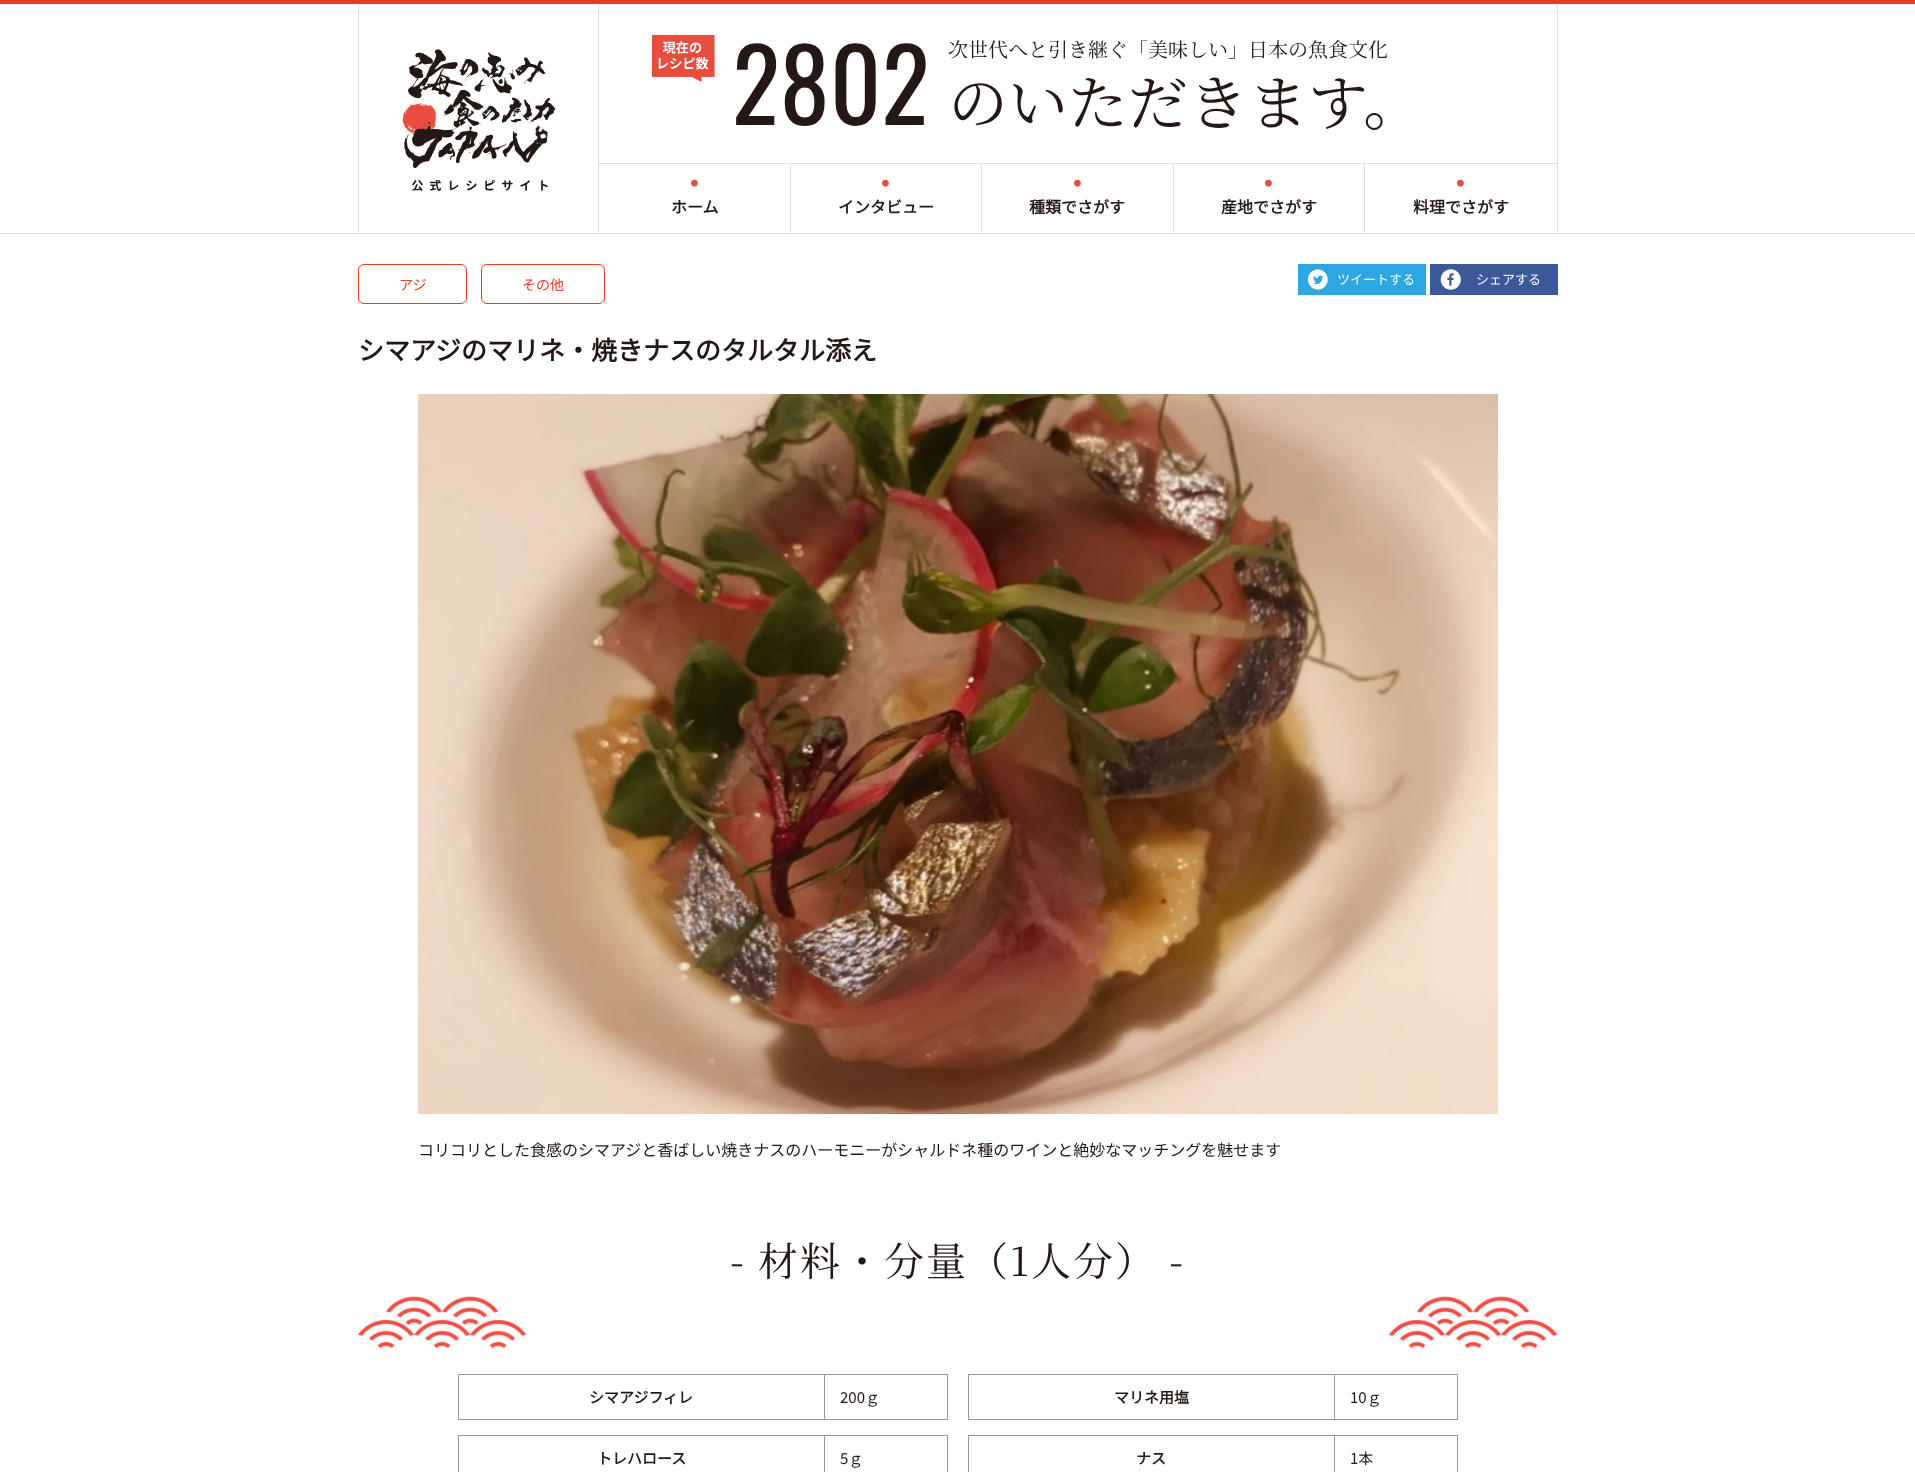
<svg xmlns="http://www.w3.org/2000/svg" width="1915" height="1472">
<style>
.a{font:100px Oswald;fill:#231815}
.b{font:200 20px Noto Serif JP;fill:#231815}
.c{font:200 60px Noto Serif JP;fill:#231815}
.d{font:bold 16px Noto Sans JP;fill:#231815}
.e{font:100 14px Noto Sans JP;fill:#e83820}
.f{font:bold 26px Noto Sans JP;fill:#231815}
.g{font:100 16px Noto Sans JP;fill:#231815}
.h{font:200 40px Noto Serif JP;letter-spacing:2px;fill:#231815}
.i{font:bold 15px Noto Sans JP;fill:#231815}
.j{font:100 15px Noto Sans JP;fill:#231815}
</style>
<rect width="100%" height="100%" fill="#fff"/>
<path fill="#e83820" d="M0 0h1915v4H0z"/>
<path fill="#dcdddd" d="M0 233h1915v1H0z"/>
<path fill="#dcdddd" d="M1557 4h1v229H1557z"/>
<path fill="#dcdddd" d="M358 4h1v229H358z"/>
<image href="1.png" x="402" y="49" width="154" height="142"/>
<path fill="#dcdddd" d="M598 4h1v229H598z"/>
<path fill="#dcdddd" d="M599 163h958v1H599z"/>
<image href="2.png" x="652" y="35" width="63" height="47"/>
<path fill="#dcdddd" d="M790 164h1v69H790z"/>
<image href="3.png" x="691" y="179" width="7" height="8"/>
<path fill="#dcdddd" d="M981 164h1v69H981z"/>
<image href="3.png" x="882" y="179" width="7" height="8"/>
<path fill="#dcdddd" d="M1173 164h1v69H1173z"/>
<image href="3.png" x="1074" y="179" width="7" height="8"/>
<path fill="#dcdddd" d="M1364 164h1v69H1364z"/>
<image href="3.png" x="1265" y="179" width="7" height="8"/>
<image href="3.png" x="1457" y="179" width="7" height="8"/>
<rect fill="none" stroke="#e83820" x="358.5" y="264.5" width="108" height="39" rx="5.5"/>
<rect fill="none" stroke="#e83820" x="481.5" y="264.5" width="123" height="39" rx="5.5"/>
<image href="4.png" x="1298" y="264" width="128" height="31"/>
<image href="5.png" x="1430" y="264" width="128" height="31"/>
<image href="6.png" x="418" y="394" width="1080" height="720"/>
<image href="7.png" x="358" y="1296" width="169" height="53"/>
<image href="7.png" x="1389" y="1296" width="169" height="53"/>
<path fill="#999" d="M947 1374h1v46H947z"/>
<path fill="#999" d="M458 1374h1v46H458z"/>
<path fill="#999" d="M458 1374h490v1H458z"/>
<path fill="#999" d="M824 1419h124v1H824z"/>
<path fill="#999" d="M824 1374h1v46H824z"/>
<path fill="#999" d="M458 1419h367v1H458z"/>
<path fill="#999" d="M1457 1374h1v46H1457z"/>
<path fill="#999" d="M968 1374h1v46H968z"/>
<path fill="#999" d="M968 1374h490v1H968z"/>
<path fill="#999" d="M1334 1419h124v1H1334z"/>
<path fill="#999" d="M1334 1374h1v46H1334z"/>
<path fill="#999" d="M968 1419h367v1H968z"/>
<path fill="#999" d="M947 1435h1v37H947z"/>
<path fill="#999" d="M458 1435h1v37H458z"/>
<path fill="#999" d="M458 1435h490v1H458z"/>
<path fill="#999" d="M824 1435h1v37H824z"/>
<path fill="#999" d="M1457 1435h1v37H1457z"/>
<path fill="#999" d="M968 1435h1v37H968z"/>
<path fill="#999" d="M968 1435h490v1H968z"/>
<path fill="#999" d="M1334 1435h1v37H1334z"/>
<text class="a" x="732" y="125">2802</text>
<text class="b" x="948" y="57">次世代へと引き継ぐ「美味しい」日本の魚食文化</text>
<text class="c" x="948" y="125">のいただきます。</text>
<text class="d" x="671" y="213">ホーム</text>
<text class="d" x="838" y="213">インタビュー</text>
<text class="d" x="1029" y="213">種類でさがす</text>
<text class="d" x="1221" y="213">産地でさがす</text>
<text class="d" x="1413" y="213">料理でさがす</text>
<text class="e" x="399" y="290">アジ</text>
<text class="e" x="522" y="290">その他</text>
<text class="f" x="358" y="360">シマアジのマリネ・焼きナスのタルタル添え</text>
<text class="g" x="418" y="1156">コリコリとした食感のシマアジと香ばしい焼きナスのハーモニーがシャルドネ種のワインと絶妙なマッチングを魅せます</text>
<text class="h" x="730" y="1276">- 材料・分量（1人分） -</text>
<text class="i" x="589" y="1403">シマアジフィレ</text>
<text class="j" x="840" y="1403">200ｇ</text>
<text class="i" x="1114" y="1403">マリネ用塩</text>
<text class="j" x="1350" y="1403">10ｇ</text>
<text class="i" x="597" y="1464">トレハロース</text>
<text class="j" x="840" y="1464">5ｇ</text>
<text class="i" x="1136" y="1464">ナス</text>
<text class="j" x="1350" y="1464">1本</text>
</svg>
